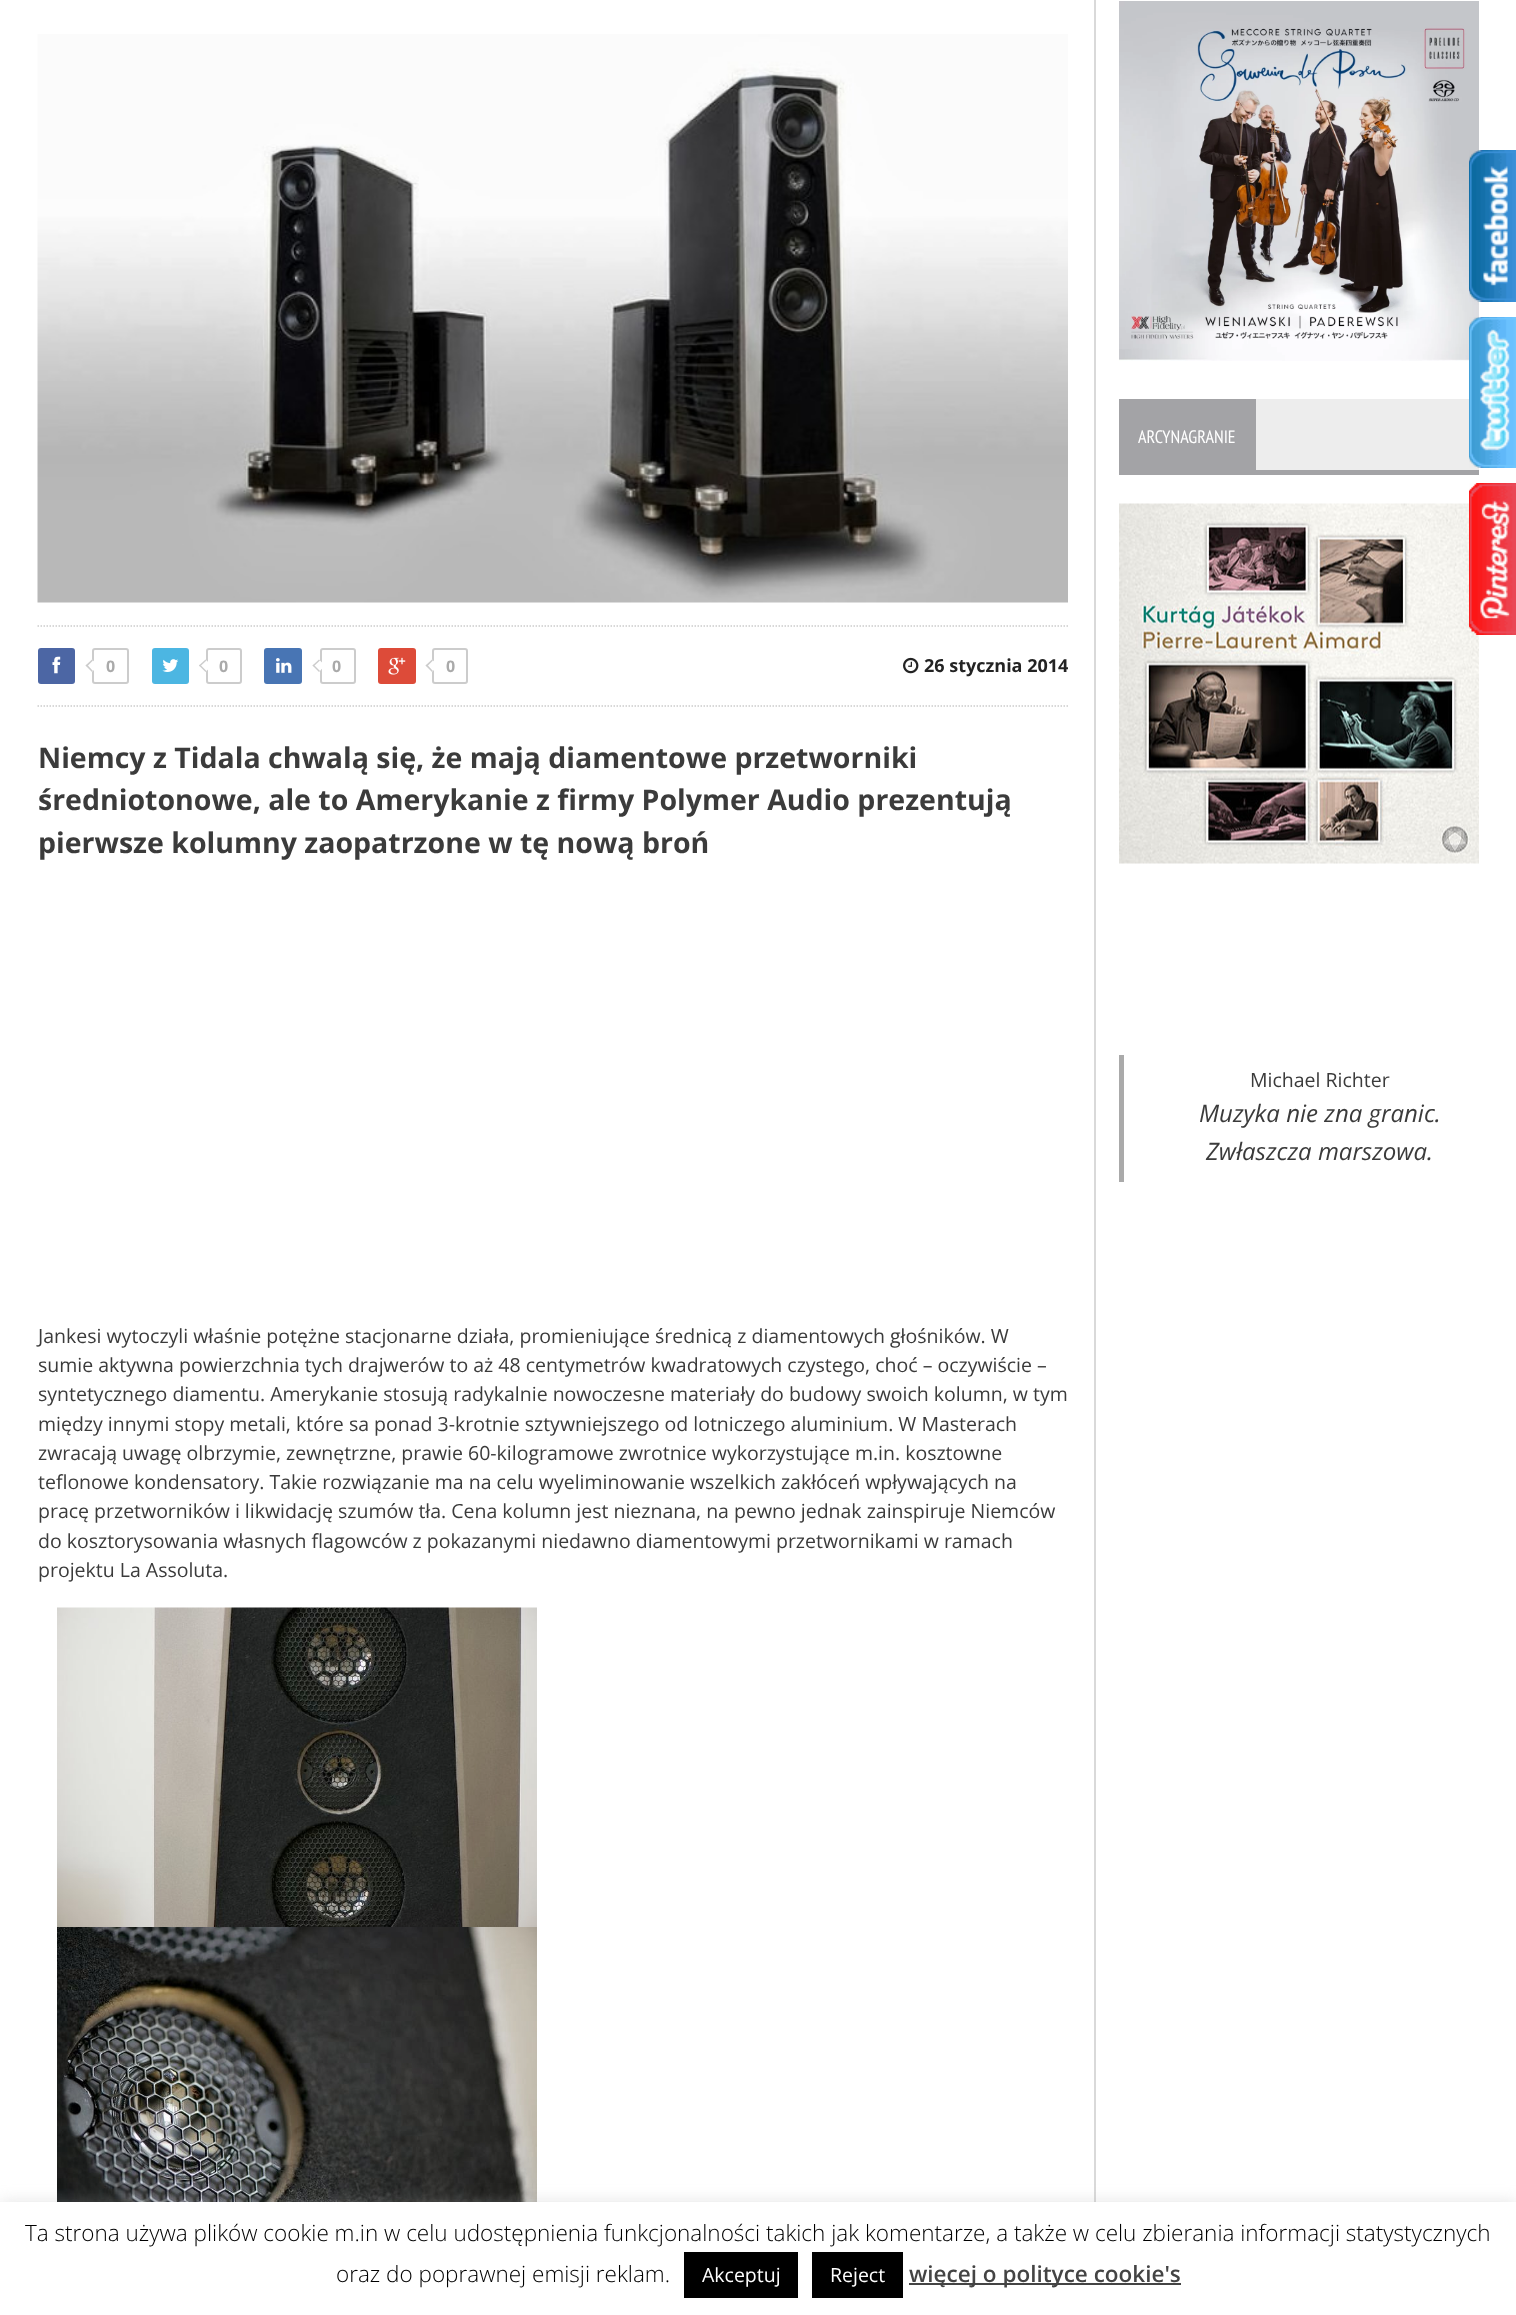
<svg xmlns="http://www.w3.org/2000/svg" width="1516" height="2315">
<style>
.a{font:bold 16px Open Sans;fill:#aaa}
.b{font:bold 18px Open Sans;fill:#232323}
.c{font:bold 28.5px Open Sans;fill:#3b3b3b}
.d{font:19.5px Open Sans;fill:#3b3b3b}
.e{font:18px PT Sans Narrow;fill:#fff}
.f{font:italic 24px Open Sans;fill:#3b3b3b}
.g{font:300 22.5px Open Sans;fill:#000}
.h{font:19.5px Open Sans;fill:#fff}
.i{font:600 22.5px Open Sans;fill:#444}
</style>
<rect width="100%" height="100%" fill="#fff"/>
<image href="1.png" x="37" y="34" width="1031" height="569"/>
<path fill="none" stroke="#ccc" stroke-width="1.5" stroke-dasharray="1.5 1.5" d="M37.5 626h1030.5"/>
<path fill="none" stroke="#ccc" stroke-width="1.5" stroke-dasharray="1.5 1.5" d="M37.5 706h1030.5"/>
<rect fill="#4c66a4" x="38" y="648" width="37" height="36" rx="3"/>
<image href="2.png" x="52" y="656" width="9" height="18"/>
<rect fill="none" stroke="#ccc" stroke-width="2" x="93" y="649" width="35" height="34" rx="2"/>
<path fill="#fff" d="M92 659.5l6.5 6l-6.5 6.5l-6.5-6.5z"/>
<path fill="#ccc" d="M87 664.5l6 6.5l-1 1l-6.5-6.5z"/>
<path fill="#ccc" d="M92 659.5l1 1l-6 6l-1.5-1z"/>
<rect fill="#4cb6e2" x="152" y="648" width="37" height="36" rx="3"/>
<image href="3.png" x="162" y="659" width="17" height="13"/>
<rect fill="none" stroke="#ccc" stroke-width="2" x="207" y="649" width="34" height="34" rx="2"/>
<path fill="#fff" d="M205.5 659.5l6.5 6l-6.5 6.5l-6.5-6.5z"/>
<path fill="#ccc" d="M200 664.5l6.5 6.5l-1 1l-6.5-6.5z"/>
<path fill="#ccc" d="M205.5 659.5l1 1l-6.5 6l-1-1z"/>
<rect fill="#4875b4" x="264" y="648" width="38" height="36" rx="3"/>
<image href="4.png" x="276" y="658" width="16" height="15"/>
<rect fill="none" stroke="#ccc" stroke-width="2" x="321" y="649" width="34" height="34" rx="2"/>
<path fill="#fff" d="M319 659.5l6 6l-6 6.5l-6.5-6.5z"/>
<path fill="#ccc" d="M313.5 664.5l6.5 6.5l-1 1l-6.5-6.5z"/>
<path fill="#ccc" d="M319 659.5l1 1l-6.5 6l-1-1z"/>
<rect fill="#dd4b39" x="378" y="648" width="38" height="36" rx="3"/>
<image href="5.png" x="388" y="657" width="18" height="18"/>
<rect fill="none" stroke="#ccc" stroke-width="2" x="433" y="649" width="34" height="34" rx="2"/>
<path fill="#fff" d="M432 659.5l6.5 6l-6.5 6.5l-6.5-6.5z"/>
<path fill="#ccc" d="M427 664.5l6 6.5l-1 1l-6.5-6.5z"/>
<path fill="#ccc" d="M432 659.5l1 1l-6 6l-1.5-1z"/>
<image href="6.png" x="903" y="657" width="16" height="17"/>
<image href="7.png" x="57" y="1607" width="480" height="320"/>
<image href="8.png" x="57" y="1927" width="480" height="275"/>
<path fill="#d9d9d9" d="M1094 0h2v2202H1094z"/>
<image href="9.png" x="1119" y="1" width="360" height="360"/>
<path fill="#ededed" d="M1256 399h223v71H1256z"/>
<path fill="#a3a3a6" d="M1119 399h137v71H1119z"/>
<path fill="#a3a3a6" d="M1119 470h360v5H1119z"/>
<image href="10.png" x="1119" y="503" width="360" height="361"/>
<path fill="#aaa" d="M1119 1055h5v127H1119z"/>
<image href="11.png" x="1469" y="150" width="47" height="152"/>
<image href="12.png" x="1469" y="317" width="47" height="151"/>
<image href="13.png" x="1469" y="483" width="47" height="152"/>
<path fill="#acabab4d" filter="blur(7.5px)" d="M0 2201h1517v114H0z"/>
<path fill="#fff" d="M0 2202h1516v113H0z"/>
<path fill="#000" d="M684 2252h114v46H684z"/>
<path fill="#000" d="M812 2252h91v46H812z"/>
<path fill="#444" d="M909 2283h272v2H909z"/>
<text class="a" x="106" y="672">0</text>
<text class="a" x="219" y="672">0</text>
<text class="a" x="332" y="672">0</text>
<text class="a" x="446" y="672">0</text>
<text class="b" x="924" y="672">26 stycznia 2014</text>
<text class="c" x="38" y="768">Niemcy z Tidala chwalą się, że mają diamentowe przetworniki</text>
<text class="c" x="38" y="810">średniotonowe, ale to Amerykanie z firmy Polymer Audio prezentują</text>
<text class="c" x="38" y="853">pierwsze kolumny zaopatrzone w tę nową broń</text>
<text class="d" x="38" y="1343">Jankesi wytoczyli właśnie potężne stacjonarne działa, promieniujące średnicą z diamentowych głośników. W</text>
<text class="d" x="38" y="1372">sumie aktywna powierzchnia tych drajwerów to aż 48 centymetrów kwadratowych czystego, choć – oczywiście –</text>
<text class="d" x="38" y="1401">syntetycznego diamentu. Amerykanie stosują radykalnie nowoczesne materiały do budowy swoich kolumn, w tym</text>
<text class="d" x="38" y="1431">między innymi stopy metali, które sa ponad 3-krotnie sztywniejszego od lotniczego aluminium. W Masterach</text>
<text class="d" x="38" y="1460">zwracają uwagę olbrzymie, zewnętrzne, prawie 60-kilogramowe zwrotnice wykorzystujące m.in. kosztowne</text>
<text class="d" x="38" y="1489">teflonowe kondensatory. Takie rozwiązanie ma na celu wyeliminowanie wszelkich zakłóceń wpływających na</text>
<text class="d" x="38" y="1518">pracę przetworników i likwidację szumów tła. Cena kolumn jest nieznana, na pewno jednak zainspiruje Niemców</text>
<text class="d" x="38" y="1548">do kosztorysowania własnych flagowców z pokazanymi niedawno diamentowymi przetwornikami w ramach</text>
<text class="d" x="38" y="1577">projektu La Assoluta.</text>
<text class="e" x="1138" y="443">ARCYNAGRANIE</text>
<text class="d" x="1250" y="1087">Michael Richter</text>
<text class="f" x="1199" y="1122">Muzyka nie zna granic.</text>
<text class="f" x="1206" y="1160">Zwłaszcza marszowa.</text>
<text class="g" x="25" y="2241">Ta strona używa plików cookie m.in w celu udostępnienia funkcjonalności takich jak komentarze, a także w celu zbierania informacji statystycznych</text>
<text class="g" x="336" y="2282">oraz do poprawnej emisji reklam.</text>
<text class="h" x="702" y="2282">Akceptuj</text>
<text class="h" x="830" y="2282">Reject</text>
<text class="i" x="909" y="2282">więcej o polityce cookie's</text>
</svg>
